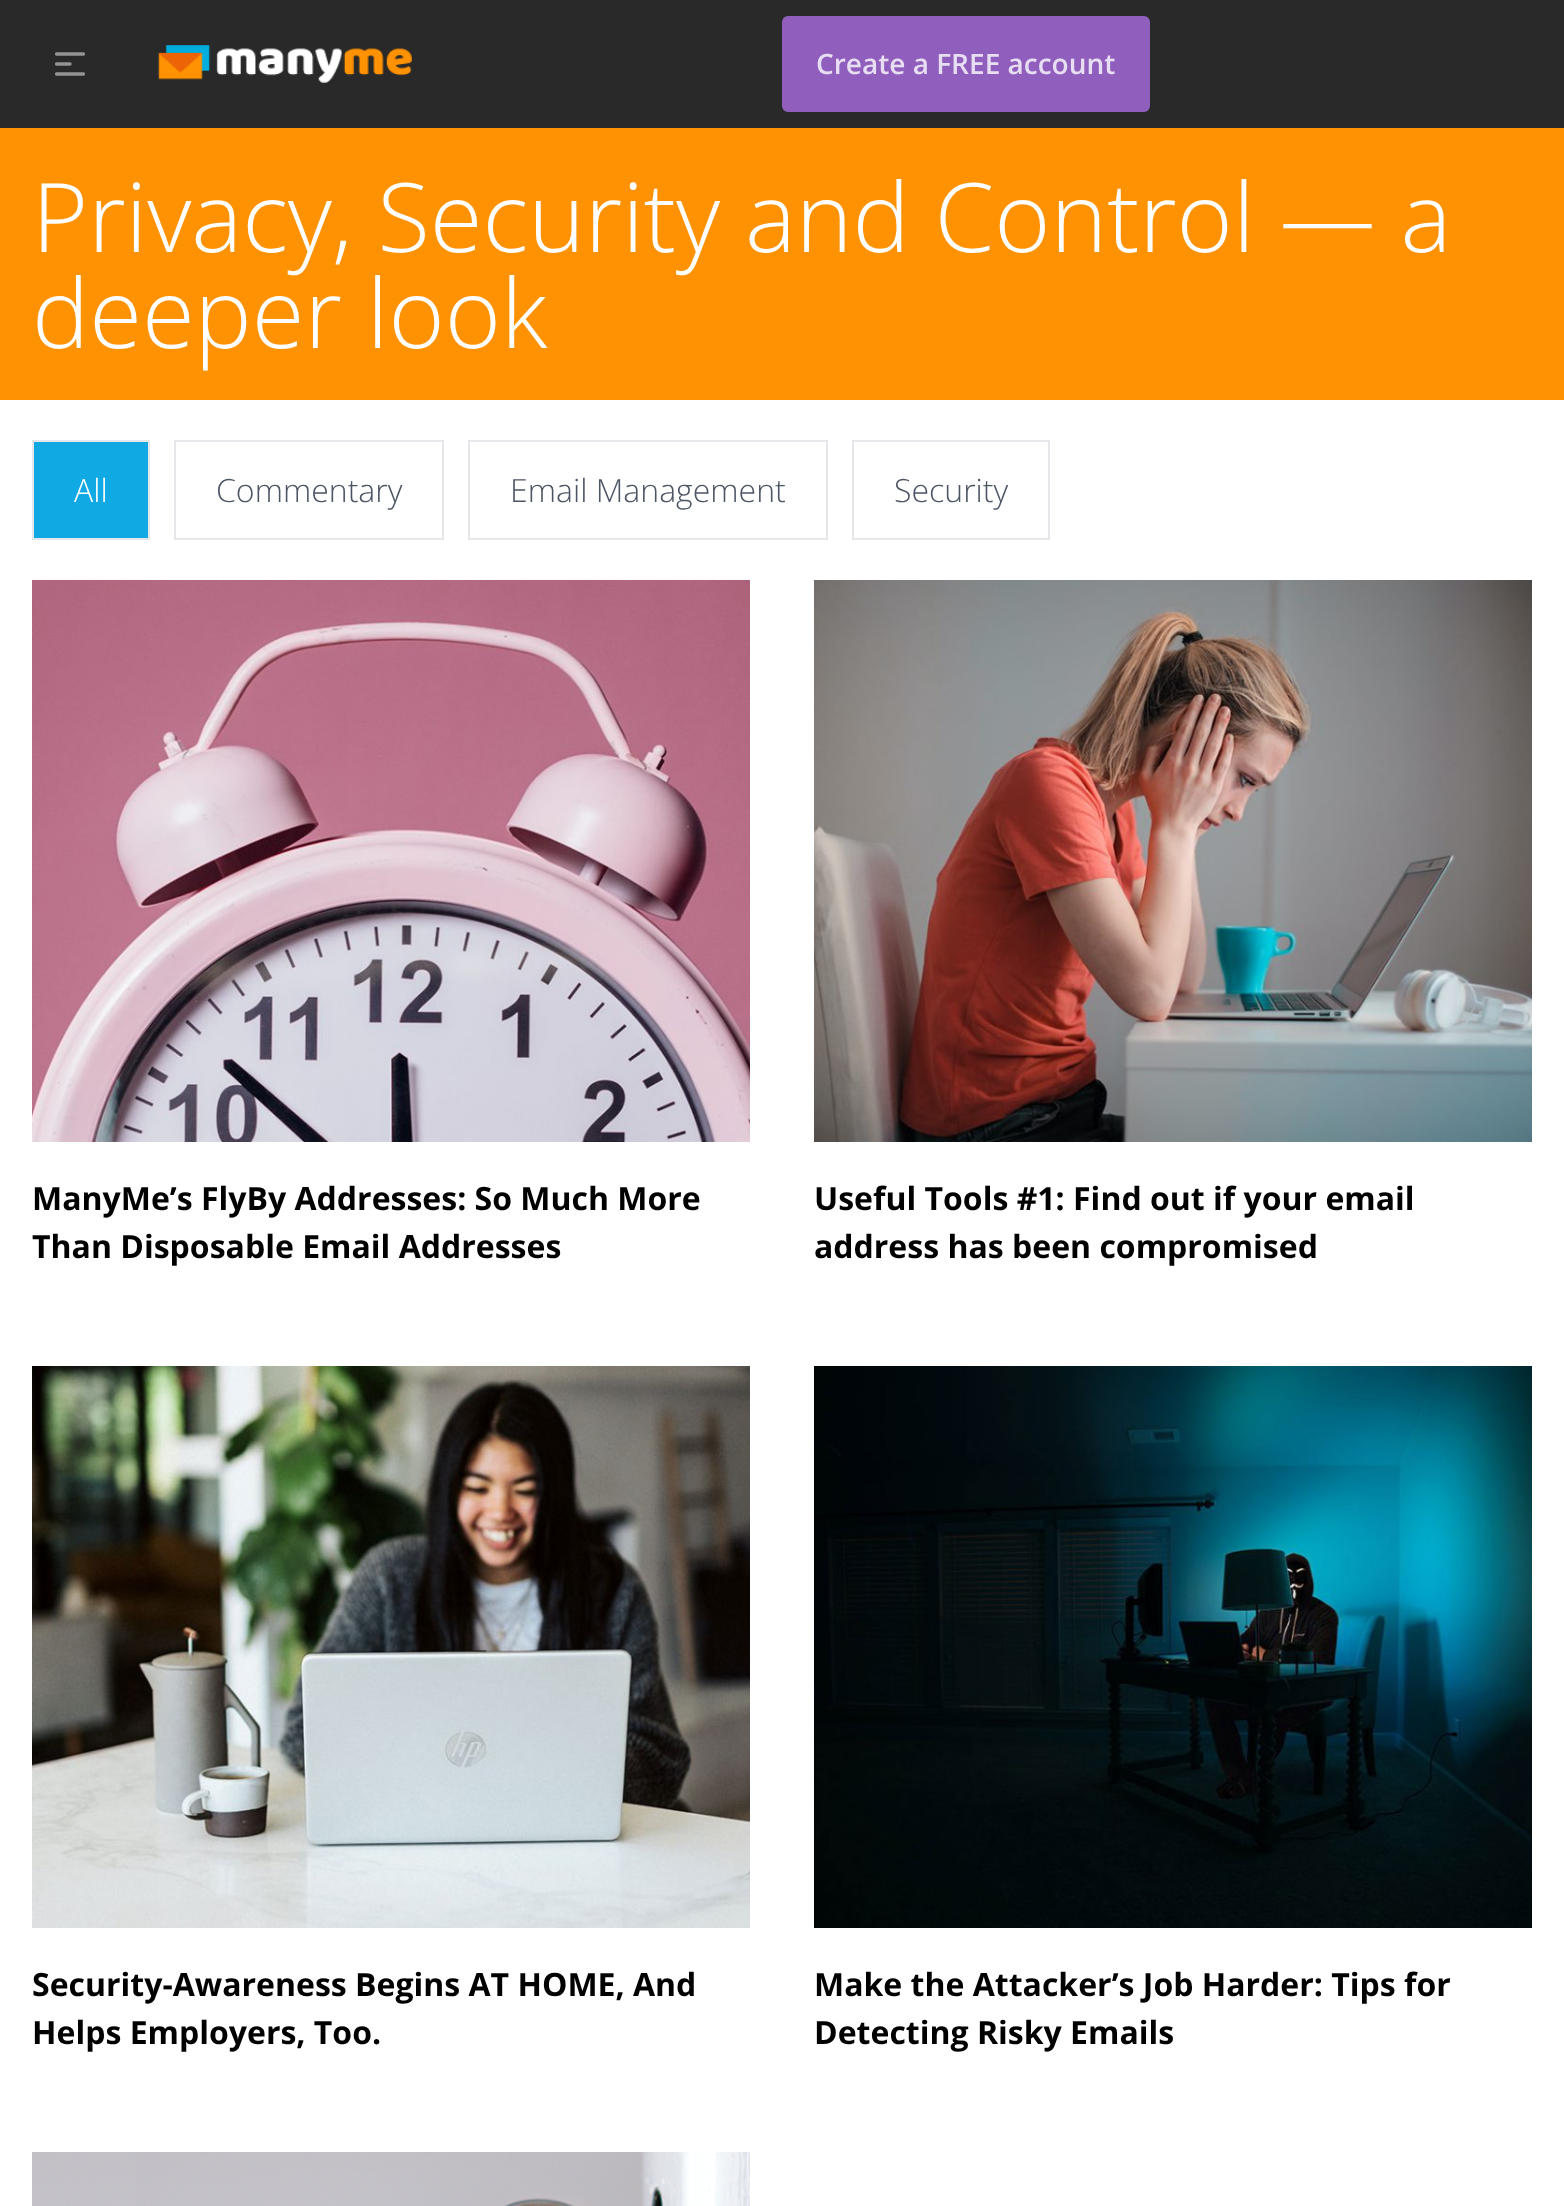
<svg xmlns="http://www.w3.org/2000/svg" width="1564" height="2206">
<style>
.a{font:600 28px Open Sans;fill:#e8def3}
.b{font:300 96px Open Sans;fill:#fff}
.c{font:300 32px Open Sans;fill:#fff}
.d{font:300 32px Open Sans;fill:#4b5563}
.e{font:bold 32px Open Sans;fill:#000}
</style>
<rect width="100%" height="100%" fill="#fff"/>
<path fill="#292929" d="M0 0h1564v128H0z"/>
<path fill="none" stroke="#949494" stroke-width="3.3" stroke-linecap="round" stroke-linejoin="round" d="M56.5 54h27m-27 10h13.5m-13.5 10h27"/>
<image href="1.png" x="158" y="45" width="254" height="38"/>
<rect fill="#905ebc" stroke="#905ebc" stroke-width="2" x="783" y="17" width="366" height="94" rx="5"/>
<path fill="#ff9202" d="M0 128h1564v272H0z"/>
<path fill="#10a9e4" stroke="#e5e7eb" stroke-width="2" d="M33 441h116v98H33z"/>
<path fill="none" stroke="#e5e7eb" stroke-width="2" d="M175 441h268v98H175z"/>
<path fill="none" stroke="#e5e7eb" stroke-width="2" d="M469 441h358v98H469z"/>
<path fill="none" stroke="#e5e7eb" stroke-width="2" d="M853 441h196v98H853z"/>
<image href="2.png" x="32" y="580" width="718" height="562"/>
<image href="3.png" x="814" y="580" width="718" height="562"/>
<image href="4.png" x="32" y="1366" width="718" height="562"/>
<image href="5.png" x="814" y="1366" width="718" height="562"/>
<image href="6.png" x="32" y="2152" width="718" height="54"/>
<text class="a" x="816" y="74">Create a FREE account</text>
<text class="b" x="32" y="252">Privacy, Security and Control — a</text>
<text class="b" x="32" y="348">deeper look</text>
<text class="c" x="74" y="502">All</text>
<text class="d" x="216" y="502">Commentary</text>
<text class="d" x="510" y="502">Email Management</text>
<text class="d" x="894" y="502">Security</text>
<text class="e" x="32" y="1210">ManyMe’s FlyBy Addresses: So Much More</text>
<text class="e" x="32" y="1258">Than Disposable Email Addresses</text>
<text class="e" x="814" y="1210">Useful Tools #1: Find out if your email</text>
<text class="e" x="814" y="1258">address has been compromised</text>
<text class="e" x="32" y="1996">Security-Awareness Begins AT HOME, And</text>
<text class="e" x="32" y="2044">Helps Employers, Too.</text>
<text class="e" x="814" y="1996">Make the Attacker’s Job Harder: Tips for</text>
<text class="e" x="814" y="2044">Detecting Risky Emails</text>
</svg>
